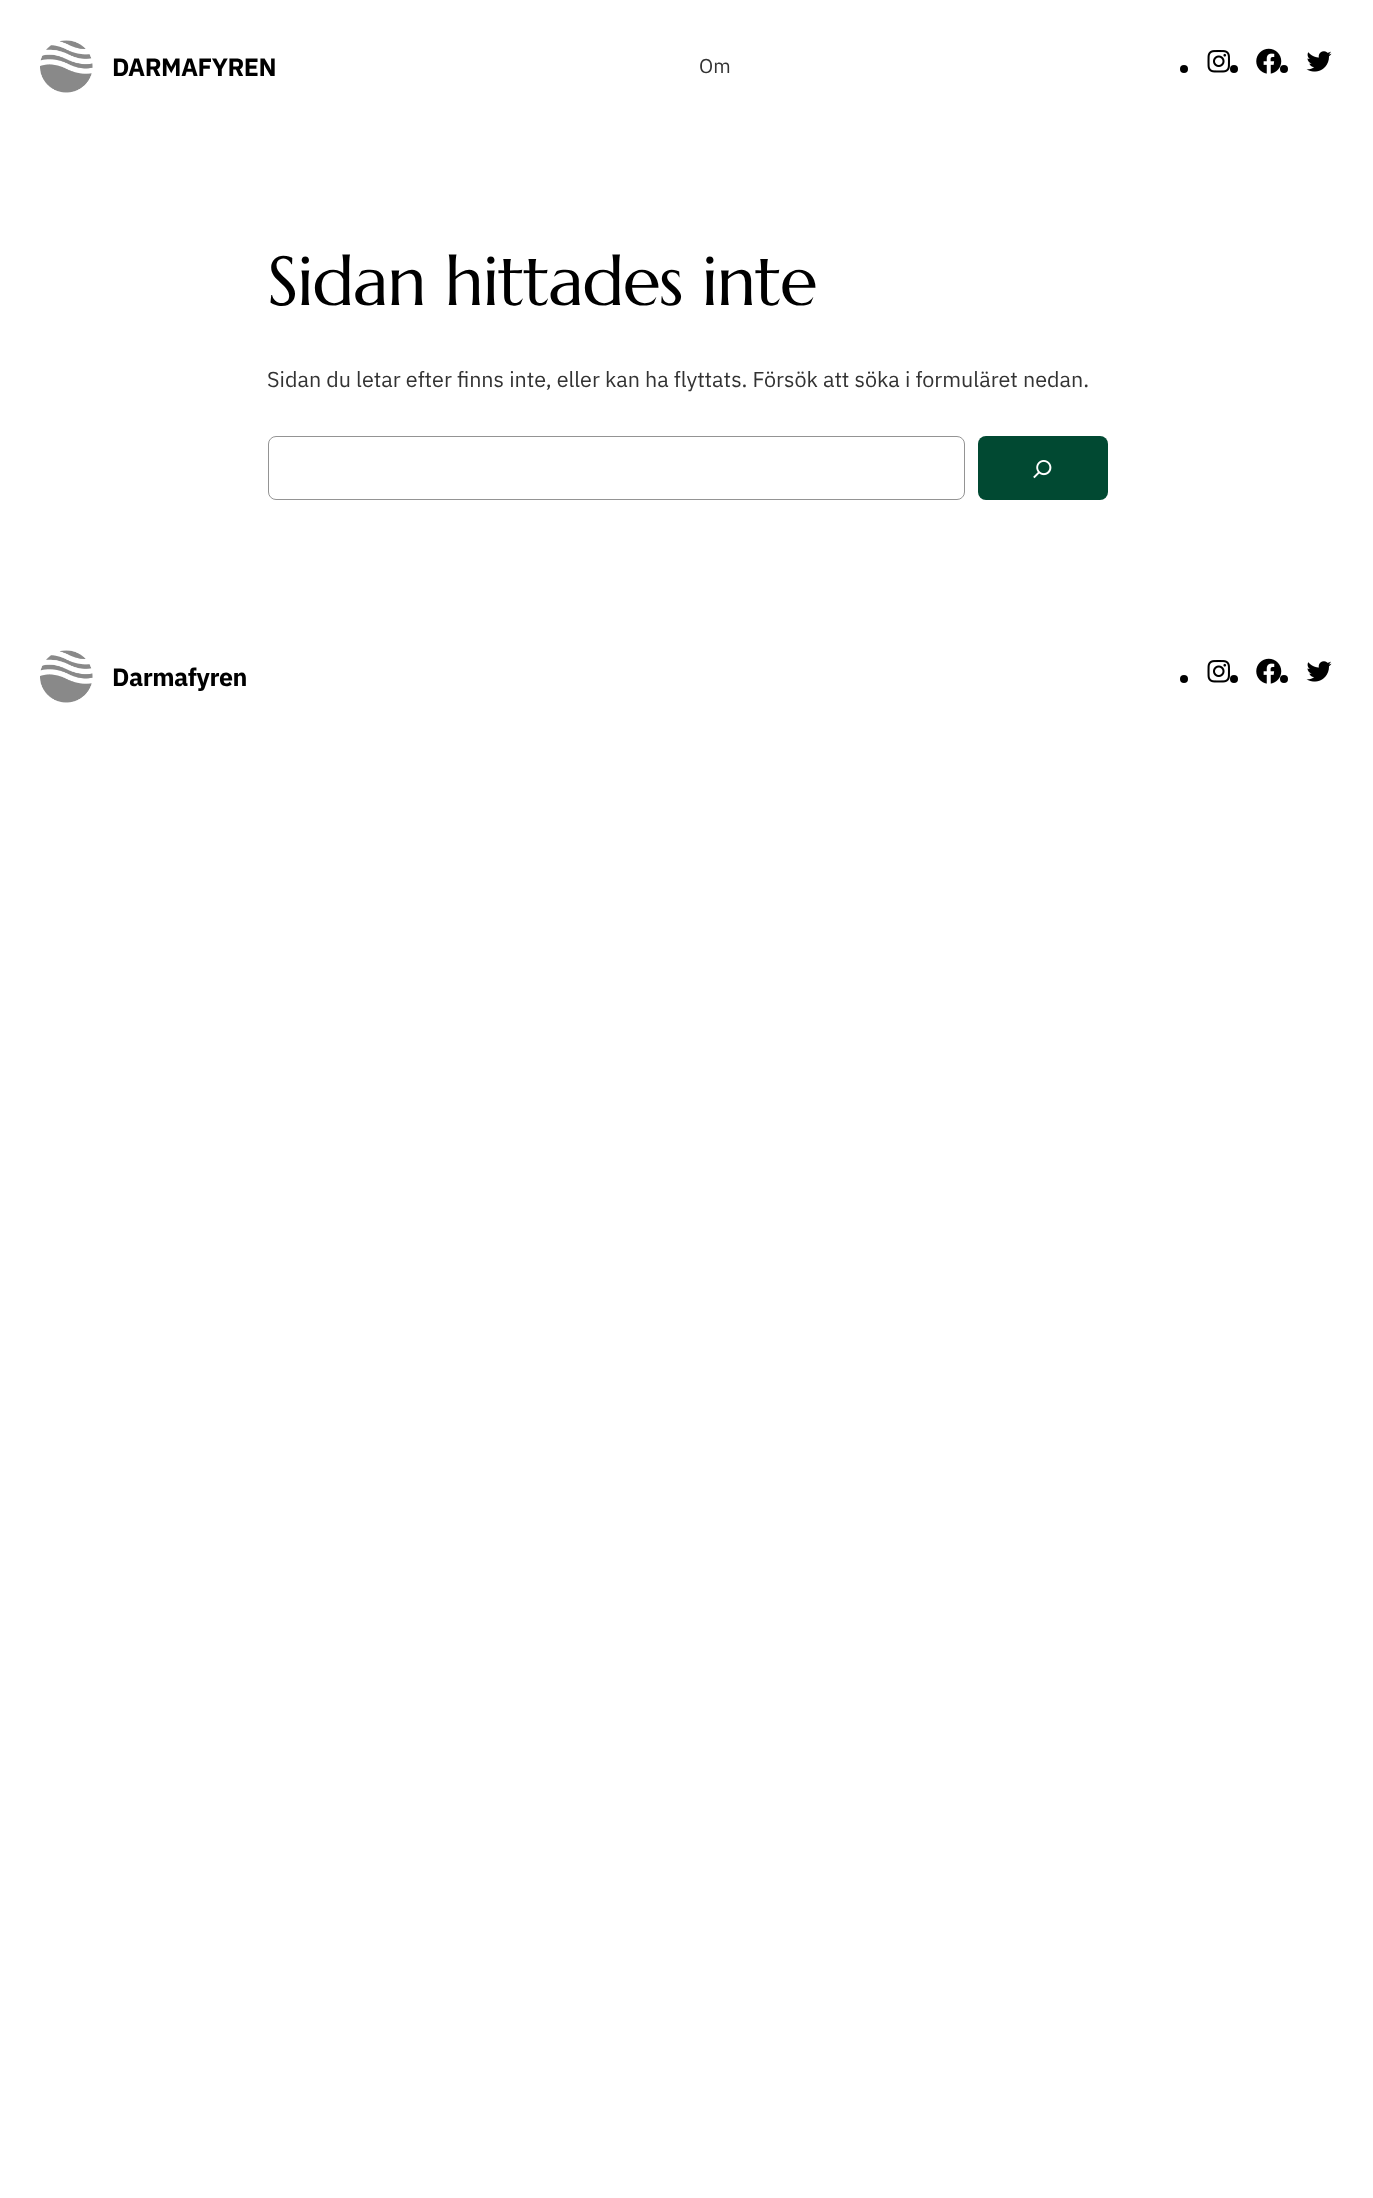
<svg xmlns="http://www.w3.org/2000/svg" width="1373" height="2198">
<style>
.a{font:bold 25px IBM Plex Sans;letter-spacing:-0.5px;fill:#000}
.b{font:20px IBM Plex Sans;fill:#333}
.c{font:69.25px Marcellus;letter-spacing:-1.4px;fill:#000}
.d{font:21.55px IBM Plex Sans;fill:#333}
</style>
<rect width="100%" height="100%" fill="#fff"/>
<image href="1.png" x="40" y="40" width="53" height="53"/>
<circle fill="#000" cx="1184" cy="69" r="4"/>
<image href="2.png" x="1207" y="50" width="23" height="23"/>
<circle fill="#000" cx="1234" cy="69" r="4"/>
<circle fill="#000" cx="1284" cy="69" r="4"/>
<image href="3.png" x="1256" y="48" width="26" height="26"/>
<image href="4.png" x="1306" y="51" width="26" height="21"/>
<rect fill="none" stroke="#949494" x="268.5" y="436.5" width="696" height="63" rx="7.5"/>
<rect fill="#014932" x="978" y="436" width="130" height="64" rx="8"/>
<image href="5.png" x="1033" y="460" width="19" height="19"/>
<image href="1.png" x="40" y="650" width="53" height="53"/>
<circle fill="#000" cx="1184" cy="679" r="4"/>
<image href="2.png" x="1207" y="660" width="23" height="23"/>
<circle fill="#000" cx="1234" cy="679" r="4"/>
<circle fill="#000" cx="1284" cy="679" r="4"/>
<image href="3.png" x="1256" y="658" width="26" height="26"/>
<image href="4.png" x="1306" y="661" width="26" height="21"/>
<text class="a" x="112" y="76">DARMAFYREN</text>
<text class="b" x="699" y="73">Om</text>
<text class="c" x="267" y="305">Sidan hittades inte</text>
<text class="d" x="267" y="387">Sidan du letar efter finns inte, eller kan ha flyttats. Försök att söka i formuläret nedan.</text>
<text class="a" x="112" y="686">Darmafyren</text>
</svg>
